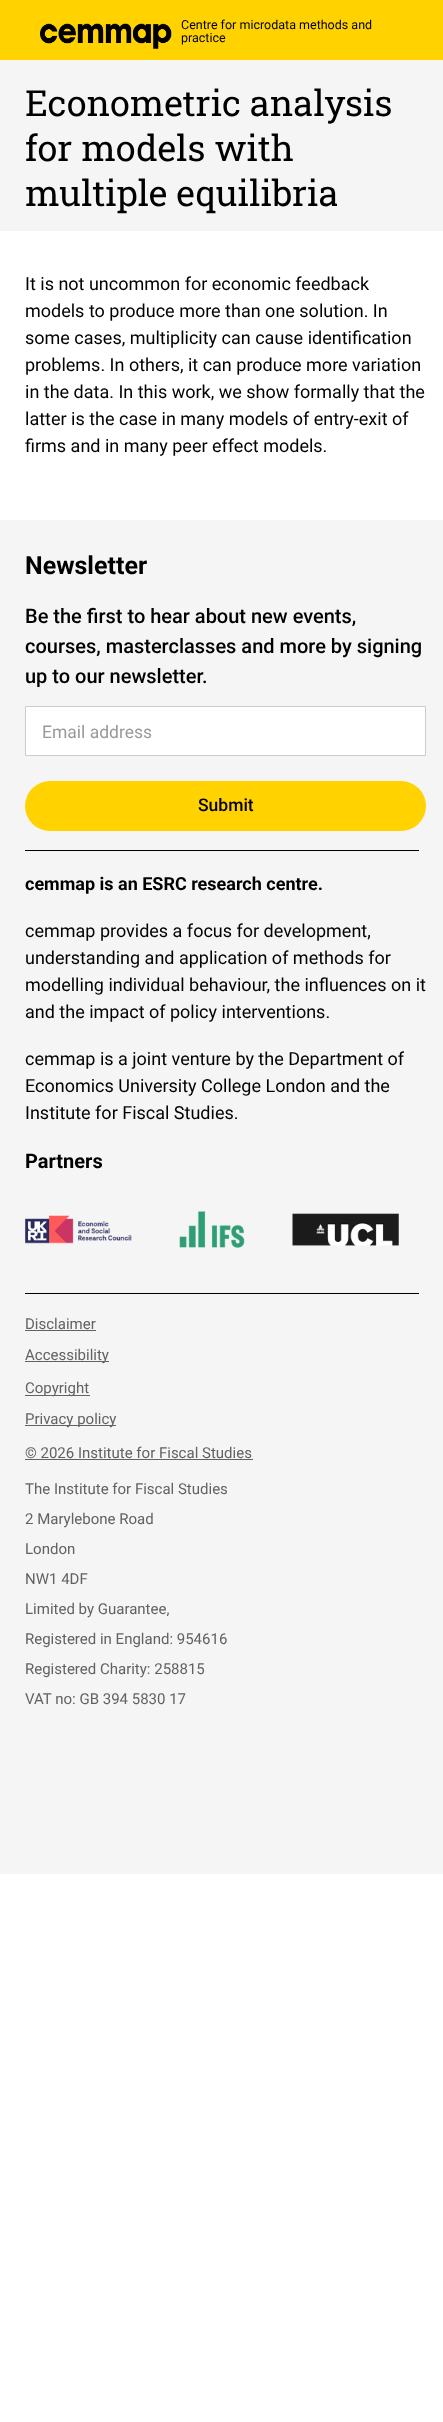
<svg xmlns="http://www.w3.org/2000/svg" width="443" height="2422">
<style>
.a{font:12.5px Roboto;fill:#000}
.b{font:36px Roboto Slab;fill:#000}
.c{font:18px Roboto;fill:#000}
.d{font:bold 25px Roboto;fill:#000}
.e{font:500 20px Roboto;fill:#000}
.f{font:17.5px Roboto;fill:#999}
.g{font:500 17.5px Roboto;fill:#000}
.h{font:bold 18px Roboto;fill:#000}
.i{font:bold 20px Roboto;fill:#000}
.j{font:15px Roboto;fill:#626262}
</style>
<rect width="100%" height="100%" fill="#fff"/>
<path fill="#ffd200" d="M0 0h443v60H0z"/>
<image href="1.png" x="40" y="23" width="132" height="26"/>
<path fill="#f5f5f5" d="M0 60h443v171H0z"/>
<path fill="#f5f5f5" d="M0 520h443v1354H0z"/>
<path fill="#fff" stroke="#ccc" d="M25.5 706.5h400v49H25.5z"/>
<rect fill="#ffd200" x="25" y="781" width="401" height="50" rx="25"/>
<path fill="#000" d="M25 850h394v1H25z"/>
<image href="2.png" x="25" y="1215" width="107" height="29"/>
<image href="3.png" x="179" y="1211" width="66" height="37"/>
<image href="4.png" x="292" y="1213" width="107" height="33"/>
<path fill="#000" d="M25 1293h394v1H25z"/>
<path fill="#626262" d="M25 1330h71v1H25z"/>
<path fill="#626262" d="M25 1361h84v1H25z"/>
<path fill="#626262" d="M25 1395h65v1H25z"/>
<path fill="#626262" d="M25 1425h91v1H25z"/>
<path fill="#626262" d="M25 1459h228v1H25z"/>
<text class="a" x="181" y="29">Centre for microdata methods and</text>
<text class="a" x="181" y="42">practice</text>
<text class="b" x="25" y="116">Econometric analysis</text>
<text class="b" x="25" y="161">for models with</text>
<text class="b" x="25" y="206">multiple equilibria</text>
<text class="c" x="25" y="290">It is not uncommon for economic feedback</text>
<text class="c" x="25" y="317">models to produce more than one solution. In</text>
<text class="c" x="25" y="344">some cases, multiplicity can cause identification</text>
<text class="c" x="25" y="371">problems. In others, it can produce more variation</text>
<text class="c" x="25" y="398">in the data. In this work, we show formally that the</text>
<text class="c" x="25" y="425">latter is the case in many models of entry-exit of</text>
<text class="c" x="25" y="452">firms and in many peer effect models.</text>
<text class="d" x="25" y="574">Newsletter</text>
<text class="e" x="25" y="623">Be the first to hear about new events,</text>
<text class="e" x="25" y="653">courses, masterclasses and more by signing</text>
<text class="e" x="25" y="683">up to our newsletter.</text>
<text class="f" x="42" y="738">Email address</text>
<text class="g" x="198" y="811">Submit</text>
<text class="h" x="25" y="890">cemmap is an ESRC research centre.</text>
<text class="c" x="25" y="937">cemmap provides a focus for development,</text>
<text class="c" x="25" y="964">understanding and application of methods for</text>
<text class="c" x="25" y="991">modelling individual behaviour, the influences on it</text>
<text class="c" x="25" y="1018">and the impact of policy interventions.</text>
<text class="c" x="25" y="1065">cemmap is a joint venture by the Department of</text>
<text class="c" x="25" y="1092">Economics University College London and the</text>
<text class="c" x="25" y="1119">Institute for Fiscal Studies.</text>
<text class="i" x="25" y="1168">Partners</text>
<text class="j" x="25" y="1329">Disclaimer</text>
<text class="j" x="25" y="1360">Accessibility</text>
<text class="j" x="25" y="1393">Copyright</text>
<text class="j" x="25" y="1424">Privacy policy</text>
<text class="j" x="25" y="1458">© 2026 Institute for Fiscal Studies</text>
<text class="j" x="25" y="1494">The Institute for Fiscal Studies</text>
<text class="j" x="25" y="1524">2 Marylebone Road</text>
<text class="j" x="25" y="1554">London</text>
<text class="j" x="25" y="1584">NW1 4DF</text>
<text class="j" x="25" y="1614">Limited by Guarantee,</text>
<text class="j" x="25" y="1644">Registered in England: 954616</text>
<text class="j" x="25" y="1674">Registered Charity: 258815</text>
<text class="j" x="25" y="1704">VAT no: GB 394 5830 17</text>
</svg>
